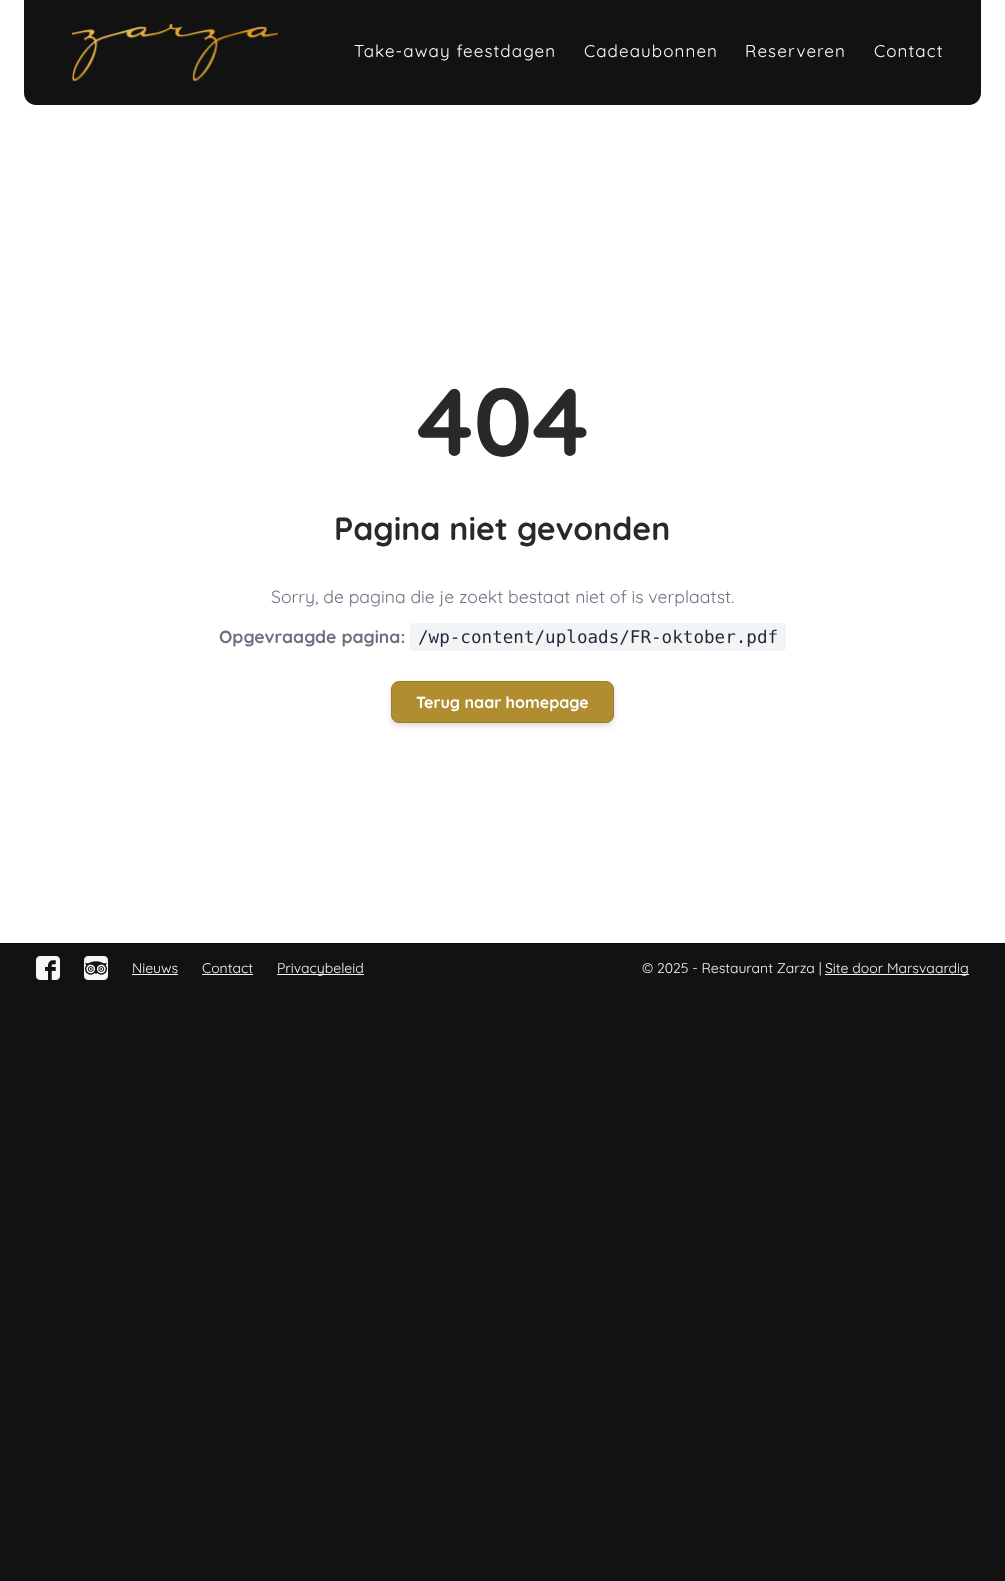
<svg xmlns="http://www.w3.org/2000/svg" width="1005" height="1581">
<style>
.a{font:17px Quicksand;letter-spacing:1.1px;fill:#fff}
.b{font:bold 96px Quicksand;fill:#292929}
.c{font:bold 32px Quicksand;fill:#292929}
.d{font:17.6px Quicksand;fill:#6b7280}
.e{font:bold 17.6px Quicksand;fill:#6b7280}
.f{font:17.6px DejaVu Sans Mono;fill:#1f2937}
.g{font:bold 16px Quicksand;fill:#fff}
.h{font:14px Quicksand;fill:#f7f7f9}
</style>
<rect width="100%" height="100%" fill="#131212"/>
<path fill="#fff" d="M0 0h1005v943H0z"/>
<path fill="#131212" d="M24 0h957v93c0 6.5-5.5 12-12 12h-933c-6.5 0-12-5.5-12-12z"/>
<image href="1.png" x="72" y="24" width="206" height="57"/>
<rect fill="#f3f4f6" x="410" y="623" width="376" height="28" rx="4"/>
<rect fill="#00000014" filter="blur(1.5px)" x="391" y="682" width="223" height="42" rx="8"/>
<rect fill="#32325d1c" filter="blur(3px)" x="391" y="685" width="223" height="42" rx="8"/>
<rect fill="#b08d2f" stroke="#9c7d2a" x="391.5" y="681.5" width="222" height="41" rx="7.5"/>
<path fill="#090808" d="M0 943h1005v1H0z"/>
<image href="2.png" x="36" y="956" width="24" height="24"/>
<image href="3.png" x="84" y="956" width="24" height="24"/>
<path fill="#f7f7f9" d="M132 974h46v1H132z"/>
<path fill="#f7f7f9" d="M202 974h51v1H202z"/>
<path fill="#f7f7f9" d="M277 974h87v1H277z"/>
<path fill="#f7f7f9" d="M825 974h144v1H825z"/>
<text class="a" x="354" y="57">Take-away feestdagen</text>
<text class="a" x="584" y="57">Cadeaubonnen</text>
<text class="a" x="745" y="57">Reserveren</text>
<text class="a" x="874" y="57">Contact</text>
<text class="b" x="417" y="456">404</text>
<text class="c" x="334" y="540">Pagina niet gevonden</text>
<text class="d" x="271" y="603">Sorry, de pagina die je zoekt bestaat niet of is verplaatst.</text>
<text class="e" x="219" y="643">Opgevraagde pagina:</text>
<text class="f" x="418" y="643">/wp-content/uploads/FR-oktober.pdf</text>
<text class="g" x="416" y="708">Terug naar homepage</text>
<text class="h" x="132" y="973">Nieuws</text>
<text class="h" x="202" y="973">Contact</text>
<text class="h" x="277" y="973">Privacybeleid</text>
<text class="h" x="642" y="973">© 2025 - Restaurant Zarza |</text>
<text class="h" x="825" y="973">Site door Marsvaardig</text>
</svg>
